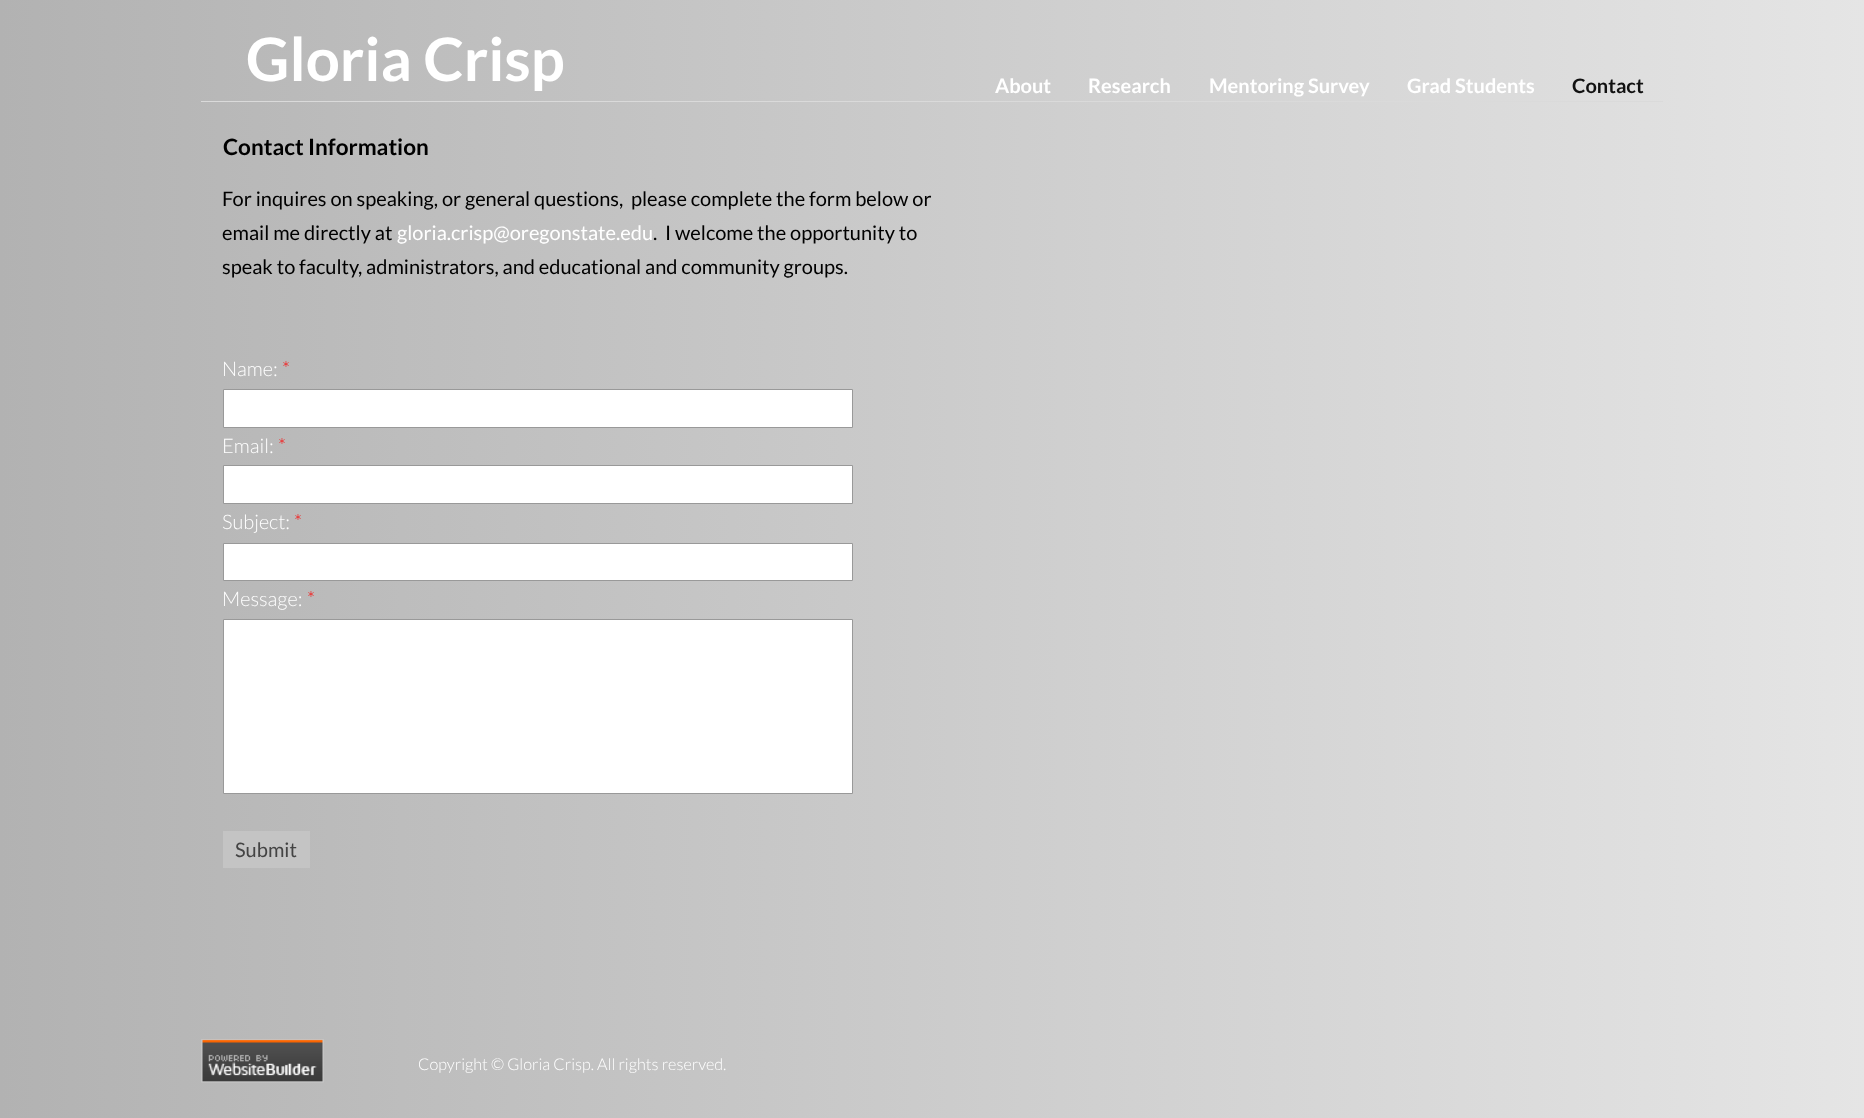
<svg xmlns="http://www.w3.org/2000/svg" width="1864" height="1118">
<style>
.a{font:bold 60px Lato;fill:#fff}
.b{font:bold 20px Lato;fill:#fff}
.c{font:bold 20px Lato;fill:#111}
.d{font:bold 22.5px Lato;fill:#000}
.e{font:20px Lato;fill:#000}
.f{font:20px Lato;fill:#fff}
.g{font:300 20px Lato;fill:#fff}
.h{font:300 20px Lato;fill:#f00}
.i{font:20px Lato;fill:#444}
.j{font:300 16.25px Lato;fill:#fff}
</style>
<defs>
<linearGradient id="g1" gradientUnits="userSpaceOnUse" x1="0" y1="559" x2="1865" y2="559"><stop offset="0" stop-color="#b2b2b2"/><stop offset="1" stop-color="#e5e5e5"/></linearGradient>
</defs>
<rect width="100%" height="100%" fill="#fff"/>
<path fill="url(#g1)" d="M0 0h1864v1118H0z"/>
<path fill="#dadada" d="M201 101h1462v1H201z"/>
<path fill="#fff" stroke="#999" d="M223.5 389.5h629v38H223.5z"/>
<path fill="#fff" stroke="#999" d="M223.5 465.5h629v38H223.5z"/>
<path fill="#fff" stroke="#999" d="M223.5 543.5h629v37H223.5z"/>
<path fill="#fff" stroke="#999" d="M223.5 619.5h629v174H223.5z"/>
<path fill="#c4c4c4" d="M223 831h87v37H223z"/>
<image href="1.png" x="201" y="1039" width="123" height="44"/>
<text class="a" x="246" y="81">Gloria Crisp</text>
<text class="b" x="995" y="93">About</text>
<text class="b" x="1088" y="93">Research</text>
<text class="b" x="1209" y="93">Mentoring Survey</text>
<text class="b" x="1407" y="93">Grad Students</text>
<text class="c" x="1572" y="93">Contact</text>
<text class="d" x="223" y="155">Contact Information</text>
<text class="e" xml:space="preserve" x="222" y="206">For inquires on speaking, or general questions,  please complete the form below or</text>
<text class="e" x="222" y="240">email me directly at</text>
<text class="f" x="397" y="240">gloria.crisp@oregonstate.edu</text>
<text class="e" xml:space="preserve" x="653" y="240">.  I welcome the opportunity to</text>
<text class="e" x="222" y="274">speak to faculty, administrators, and educational and community groups.</text>
<text class="g" x="222" y="376">Name:</text>
<text class="h" x="282" y="376">*</text>
<text class="g" x="222" y="453">Email:</text>
<text class="h" x="278" y="453">*</text>
<text class="g" x="222" y="529">Subject:</text>
<text class="h" x="294" y="529">*</text>
<text class="g" x="222" y="606">Message:</text>
<text class="h" x="307" y="606">*</text>
<text class="i" x="235" y="857">Submit</text>
<text class="j" x="418" y="1070">Copyright © Gloria Crisp. All rights reserved.</text>
</svg>
